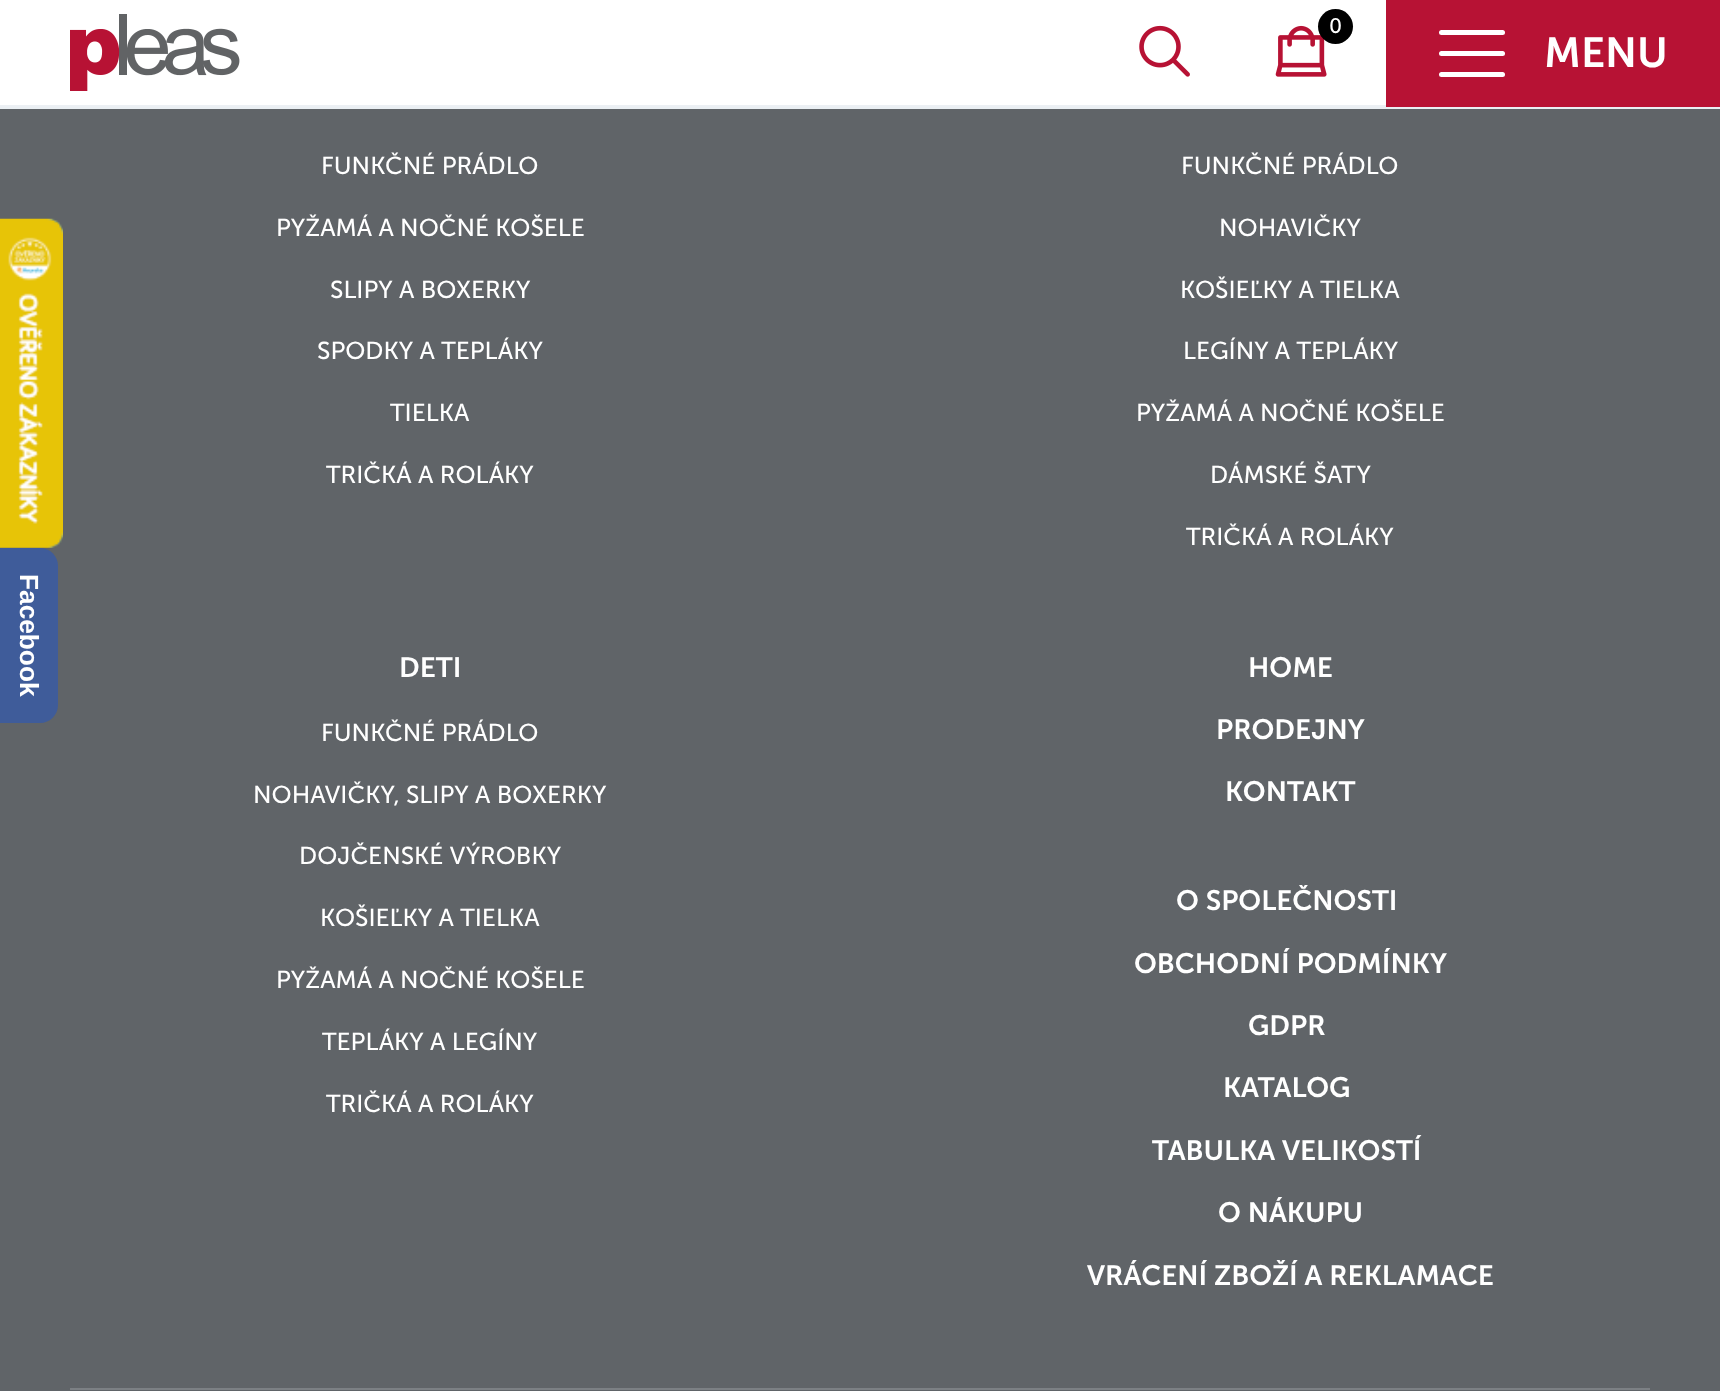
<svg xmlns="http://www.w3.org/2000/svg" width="1720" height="1391">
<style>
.a{font:21px 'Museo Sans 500';fill:#fff}
.b{font:600 42px 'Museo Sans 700';fill:#fff}
.c{font:bold 26.25px Liberation Sans;fill:#fff}
.d{font:24.5px 'Museo Sans 500';fill:#fff}
.e{font:600 28px 'Museo Sans 700';fill:#fff}
</style>
<rect width="100%" height="100%" fill="#606468"/>
<path fill="#fff" d="M0 0h1386v105H0z"/>
<path fill="#ecf0f4" d="M0 105h1386v2H0z"/>
<image href="1.png" x="70" y="14" width="170" height="77"/>
<image href="2.png" x="1139" y="25" width="51" height="52"/>
<image href="3.png" x="1275" y="25" width="52" height="52"/>
<circle fill="#000" cx="1335.5" cy="26.5" r="17.5"/>
<path fill="#b71234" d="M1386 0h334v107H1386z"/>
<rect fill="#fff" x="1439" y="30" width="66" height="5" rx="2.5"/>
<rect fill="#fff" x="1439" y="51" width="66" height="5" rx="2.5"/>
<rect fill="#fff" x="1439" y="72" width="66" height="5" rx="2.5"/>
<path fill="#eaeff3" d="M0 107h1720v2H0z"/>
<path fill="#3f5c9a" d="M-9 548h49c10 0 18 8 18 18v139c0 10-8 18-18 18h-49z"/>
<path fill="#7c8084" d="M70 1388h1580v2H70z"/>
<image href="4.png" x="0" y="218" width="63" height="330"/>
<text class="a" x="1329" y="33">0</text>
<text class="b" x="1544" y="67">MENU</text>
<text class="c" x="20" y="574" transform="rotate(90 20 574)">Facebook</text>
<text class="d" x="321" y="174">FUNKČNÉ PRÁDLO</text>
<text class="d" x="276" y="236">PYŽAMÁ A NOČNÉ KOŠELE</text>
<text class="d" x="330" y="298">SLIPY A BOXERKY</text>
<text class="d" x="317" y="359">SPODKY A TEPLÁKY</text>
<text class="d" x="390" y="421">TIELKA</text>
<text class="d" x="326" y="483">TRIČKÁ A ROLÁKY</text>
<text class="d" x="1181" y="174">FUNKČNÉ PRÁDLO</text>
<text class="d" x="1219" y="236">NOHAVIČKY</text>
<text class="d" x="1180" y="298">KOŠIEĽKY A TIELKA</text>
<text class="d" x="1183" y="359">LEGÍNY A TEPLÁKY</text>
<text class="d" x="1136" y="421">PYŽAMÁ A NOČNÉ KOŠELE</text>
<text class="d" x="1210" y="483">DÁMSKÉ ŠATY</text>
<text class="d" x="1186" y="545">TRIČKÁ A ROLÁKY</text>
<text class="e" x="399" y="677">DETI</text>
<text class="d" x="321" y="741">FUNKČNÉ PRÁDLO</text>
<text class="d" x="253" y="803">NOHAVIČKY, SLIPY A BOXERKY</text>
<text class="d" x="299" y="864">DOJČENSKÉ VÝROBKY</text>
<text class="d" x="320" y="926">KOŠIEĽKY A TIELKA</text>
<text class="d" x="276" y="988">PYŽAMÁ A NOČNÉ KOŠELE</text>
<text class="d" x="322" y="1050">TEPLÁKY A LEGÍNY</text>
<text class="d" x="326" y="1112">TRIČKÁ A ROLÁKY</text>
<text class="e" x="1248" y="677">HOME</text>
<text class="e" x="1216" y="739">PRODEJNY</text>
<text class="e" x="1225" y="801">KONTAKT</text>
<text class="e" x="1176" y="910">O SPOLEČNOSTI</text>
<text class="e" x="1134" y="973">OBCHODNÍ PODMÍNKY</text>
<text class="e" x="1248" y="1035">GDPR</text>
<text class="e" x="1223" y="1097">KATALOG</text>
<text class="e" x="1152" y="1160">TABULKA VELIKOSTÍ</text>
<text class="e" x="1218" y="1222">O NÁKUPU</text>
<text class="e" x="1087" y="1285">VRÁCENÍ ZBOŽÍ A REKLAMACE</text>
</svg>
